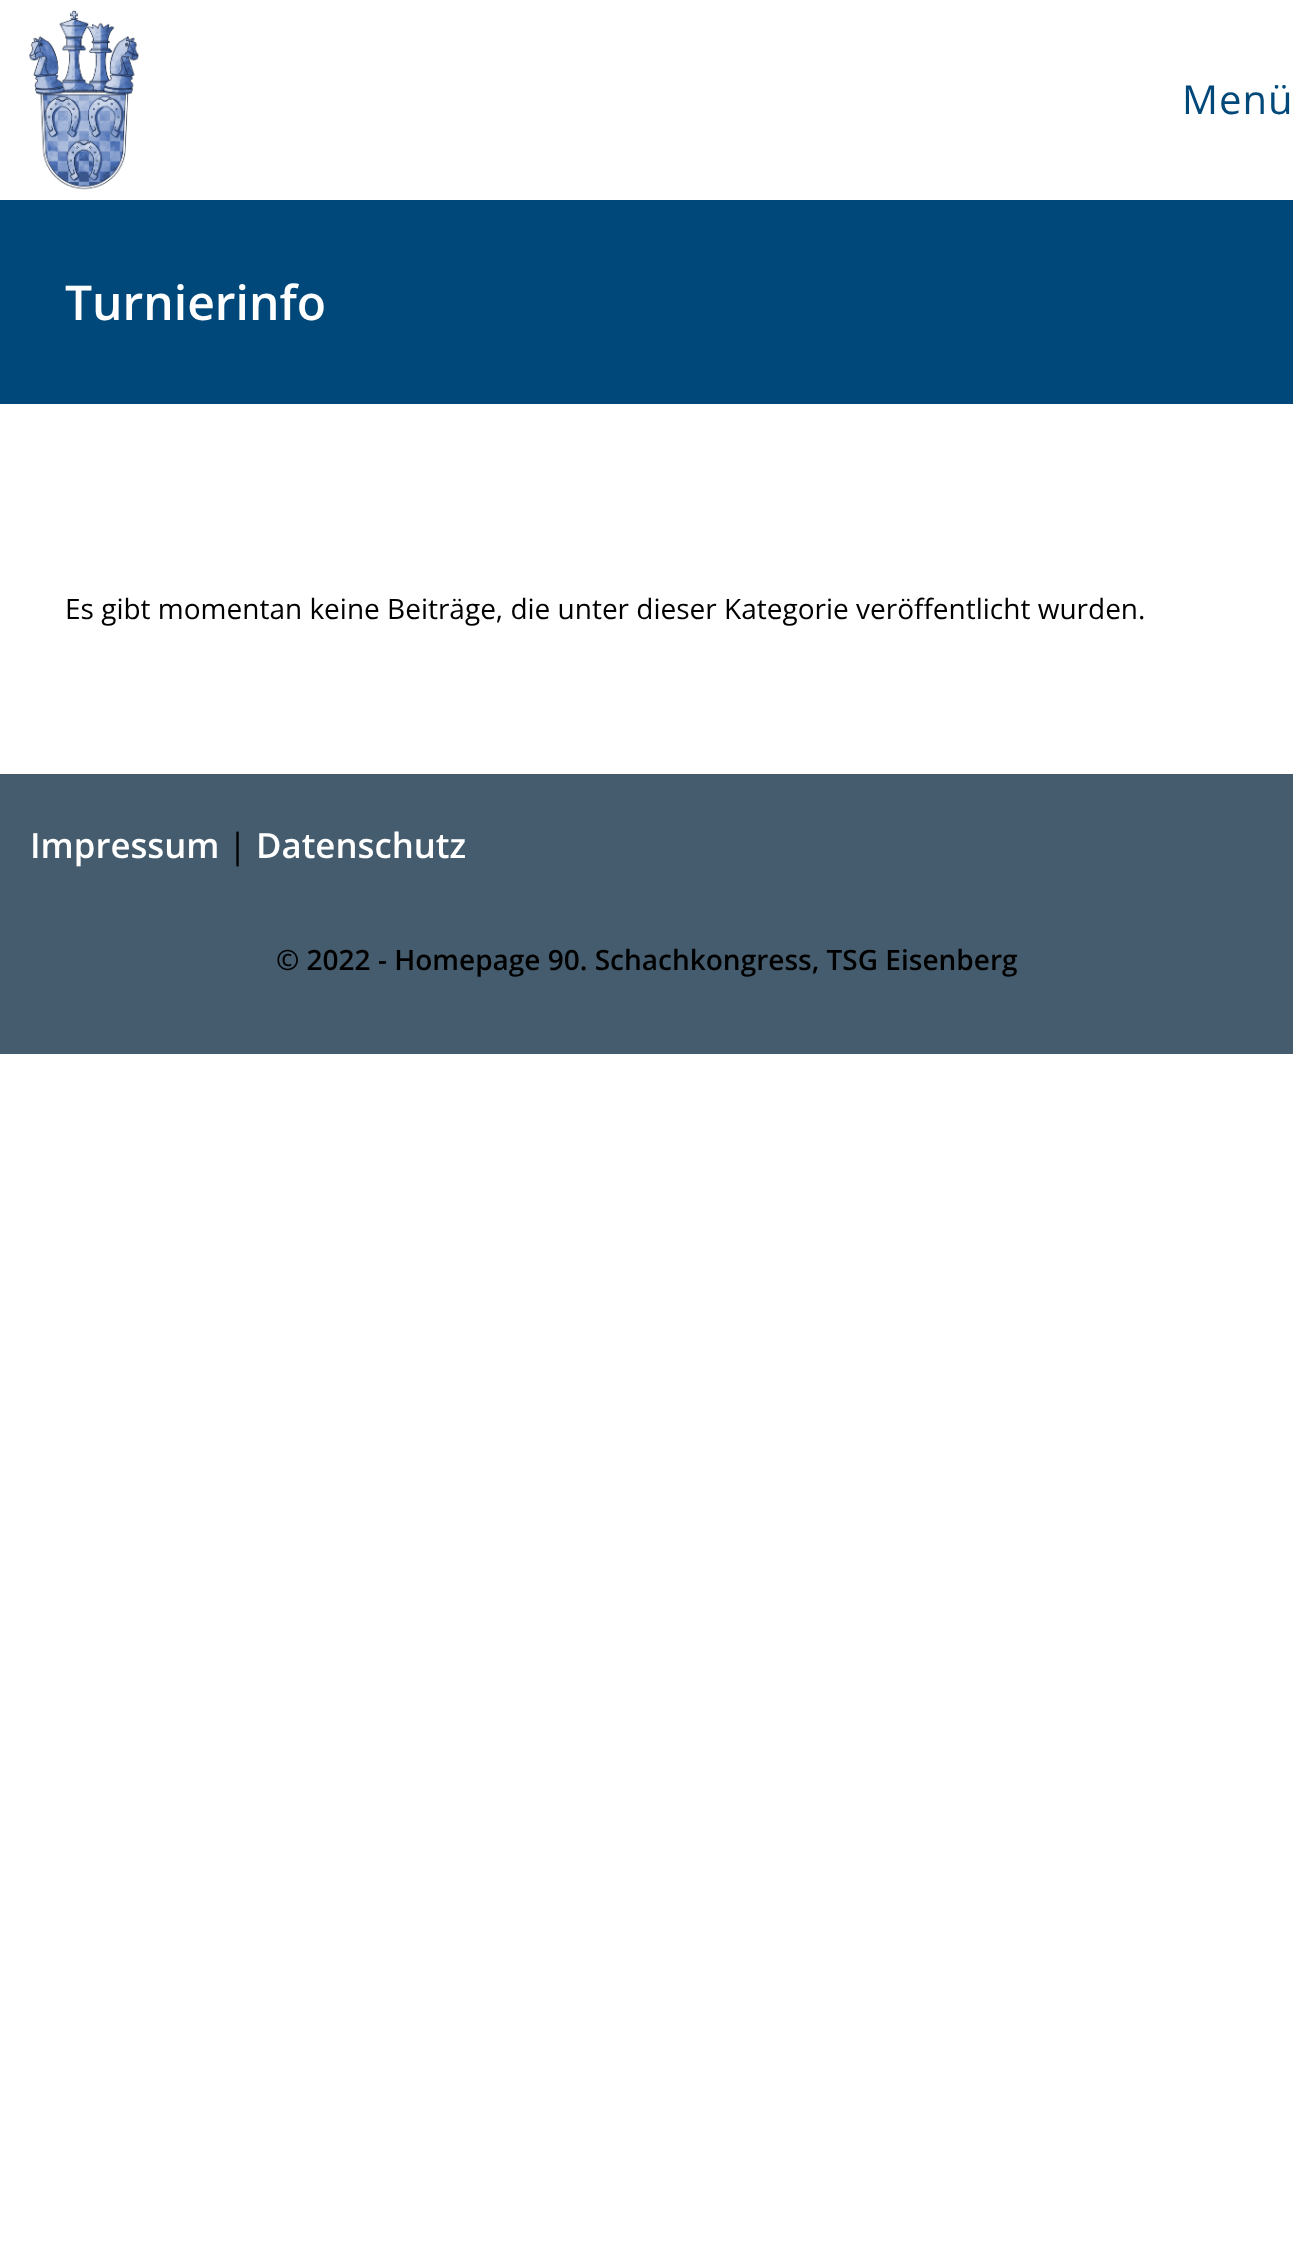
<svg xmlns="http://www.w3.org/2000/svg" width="1293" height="2253">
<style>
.a{font:40px Open Sans;letter-spacing:1px;fill:#00487a}
.b{font:600 48px Open Sans;fill:#fff}
.c{font:28px Open Sans;fill:#000}
.d{font:600 34.75px Open Sans;fill:#fff}
.e{font:34.75px Open Sans;fill:#000}
.f{font:600 28px Open Sans;fill:#000}
</style>
<rect width="100%" height="100%" fill="#fff"/>
<image href="1.png" x="29" y="10" width="110" height="180"/>
<path fill="#00487a" d="M0 200h1293v204H0z"/>
<path fill="#445c6d" d="M0 774h1293v280H0z"/>
<text class="a" x="1182" y="114">Menü</text>
<text class="b" x="65" y="320">Turnierinfo</text>
<text class="c" x="65" y="619">Es gibt momentan keine Beiträge, die unter dieser Kategorie veröffentlicht wurden.</text>
<text class="d" x="30" y="858">Impressum</text>
<text class="e" x="228" y="858">|</text>
<text class="d" x="256" y="858">Datenschutz</text>
<text class="f" x="276" y="970">© 2022 - Homepage 90. Schachkongress, TSG Eisenberg</text>
</svg>
